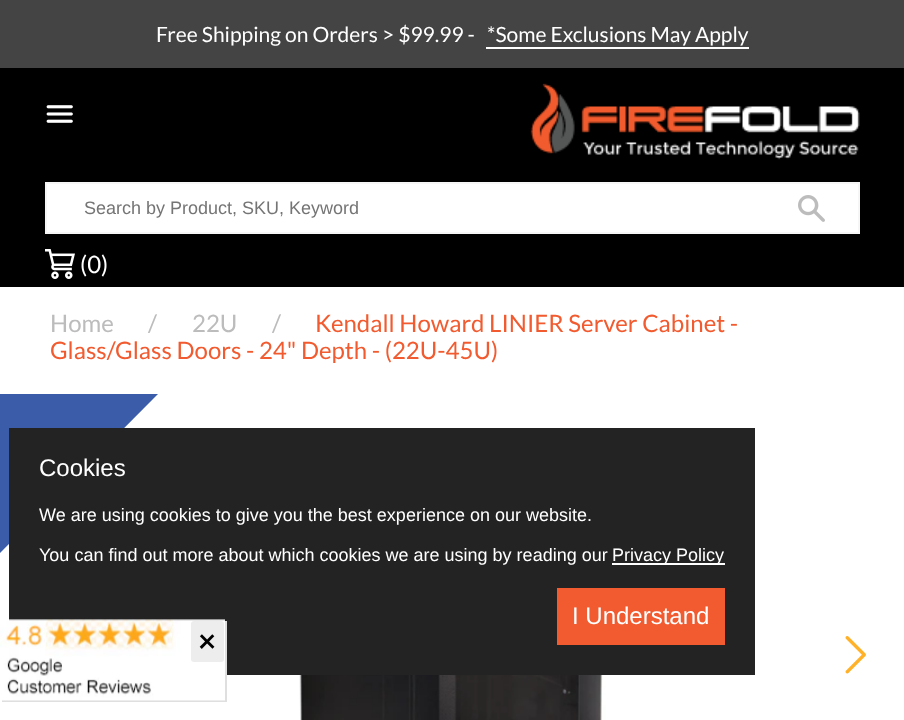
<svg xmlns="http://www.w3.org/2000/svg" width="904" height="720">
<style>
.a{font:21px Lato;fill:#fff}
.b{font:18px Liberation Sans;fill:#757575}
.c{font:24px Lato;fill:#fff}
.d{font:24px Lato;fill:#bcbcbc}
.e{font:24px Lato;fill:#f15b2f}
.f{font:24px Liberation Sans;fill:#fff}
.g{font:18px Liberation Sans;fill:#fff}
.h{font:bold 30px Lato;fill:#000}
</style>
<rect width="100%" height="100%" fill="#fff"/>
<path fill="#000" d="M0 68h904v219H0z"/>
<path fill="#444" d="M0 0h904v68H0z"/>
<path fill="#fff" d="M486 47h263v2H486z"/>
<image href="1.png" x="46" y="105" width="27" height="18"/>
<image href="2.png" x="530" y="83" width="330" height="77"/>
<path fill="#fff" stroke="#f6f6f6" stroke-width="2" d="M46 183h813v50H46z"/>
<image href="3.png" x="798" y="195" width="27" height="27"/>
<image href="4.png" x="45" y="249" width="30" height="30"/>
<path fill="#3a5ca9" d="M158 394l-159 160v-160z"/>
<image href="5.png" x="845" y="636" width="21" height="38"/>
<image href="6.png" x="297" y="675" width="309" height="45"/>
<path fill="#232323" d="M9 428h746v247H9z"/>
<path fill="#fff" d="M612 563h113v2H612z"/>
<path fill="#f15b2f" d="M557 588h168v57H557z"/>
<path fill="#dfdfdf" d="M2 700v2h225v-81h-2v79z"/>
<image href="7.png" x="0" y="619" width="225" height="82"/>
<rect fill="#ededed" x="191" y="621" width="33" height="41" rx="3"/>
<text class="a" x="156" y="42">Free Shipping on Orders &gt; $99.99 -</text>
<text class="a" x="487" y="42">*Some Exclusions May Apply</text>
<text class="b" x="84" y="214">Search by Product, SKU, Keyword</text>
<text class="c" x="80" y="273">(0)</text>
<text class="d" x="50" y="332">Home</text>
<text class="d" x="148" y="332">/</text>
<text class="d" x="192" y="332">22U</text>
<text class="d" x="272" y="332">/</text>
<text class="e" x="315" y="332">Kendall Howard LINIER Server Cabinet -</text>
<text class="e" x="50" y="359">Glass/Glass Doors - 24" Depth - (22U-45U)</text>
<text class="f" x="39" y="476">Cookies</text>
<text class="g" x="39" y="521">We are using cookies to give you the best experience on our website.</text>
<text class="g" x="39" y="561">You can find out more about which cookies we are using by reading our</text>
<text class="g" x="612" y="561">Privacy Policy</text>
<text class="f" x="572" y="624">I Understand</text>
<text class="h" x="198" y="652">×</text>
</svg>
